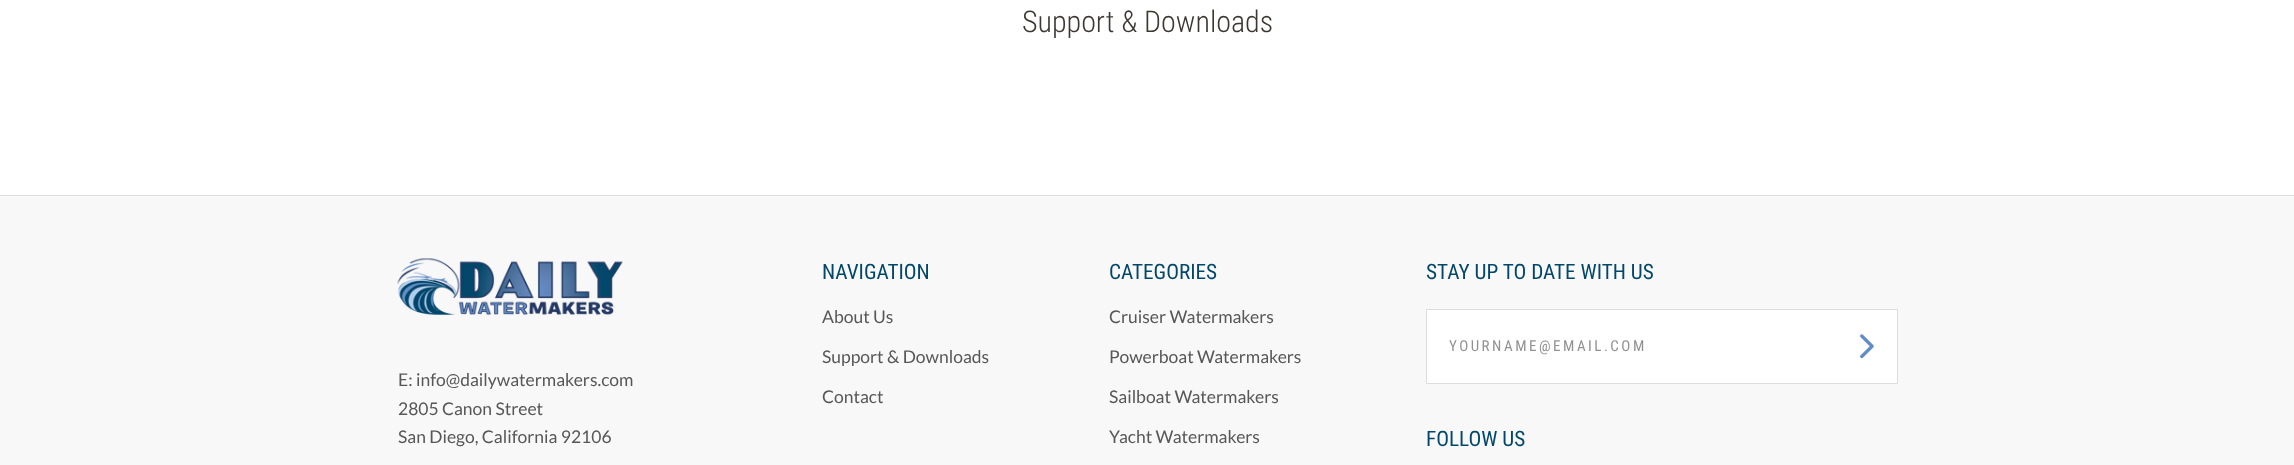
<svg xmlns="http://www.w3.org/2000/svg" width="2294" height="465">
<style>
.a{font:300 30px Roboto Condensed;fill:#3c3734}
.b{font:17.5px Lato;fill:#575757}
.c{font:21.25px Roboto Condensed;fill:#02476a}
.d{font:15px Roboto Condensed;letter-spacing:2.5px;fill:#919191}
</style>
<rect width="100%" height="100%" fill="#fff"/>
<path fill="#f8f8f8" d="M0 196h2294v269H0z"/>
<path fill="#ddd" d="M0 195h2294v1H0z"/>
<image href="1.png" x="397" y="258" width="226" height="57"/>
<path fill="#fff" stroke="#ddd" d="M1426.5 309.5h471v74H1426.5z"/>
<image href="2.png" x="1860" y="334" width="14" height="25"/>
<text class="a" x="1022" y="32">Support &amp; Downloads</text>
<text class="b" x="398" y="386">E: info@dailywatermakers.com</text>
<text class="b" x="398" y="415">2805 Canon Street</text>
<text class="b" x="398" y="443">San Diego, California 92106</text>
<text class="c" x="822" y="279">NAVIGATION</text>
<text class="b" x="822" y="323">About Us</text>
<text class="b" x="822" y="363">Support &amp; Downloads</text>
<text class="b" x="822" y="403">Contact</text>
<text class="c" x="1109" y="279">CATEGORIES</text>
<text class="b" x="1109" y="323">Cruiser Watermakers</text>
<text class="b" x="1109" y="363">Powerboat Watermakers</text>
<text class="b" x="1109" y="403">Sailboat Watermakers</text>
<text class="b" x="1109" y="443">Yacht Watermakers</text>
<text class="c" x="1426" y="279">STAY UP TO DATE WITH US</text>
<text class="d" x="1449" y="351">YOURNAME@EMAIL.COM</text>
<text class="c" x="1426" y="446">FOLLOW US</text>
</svg>
